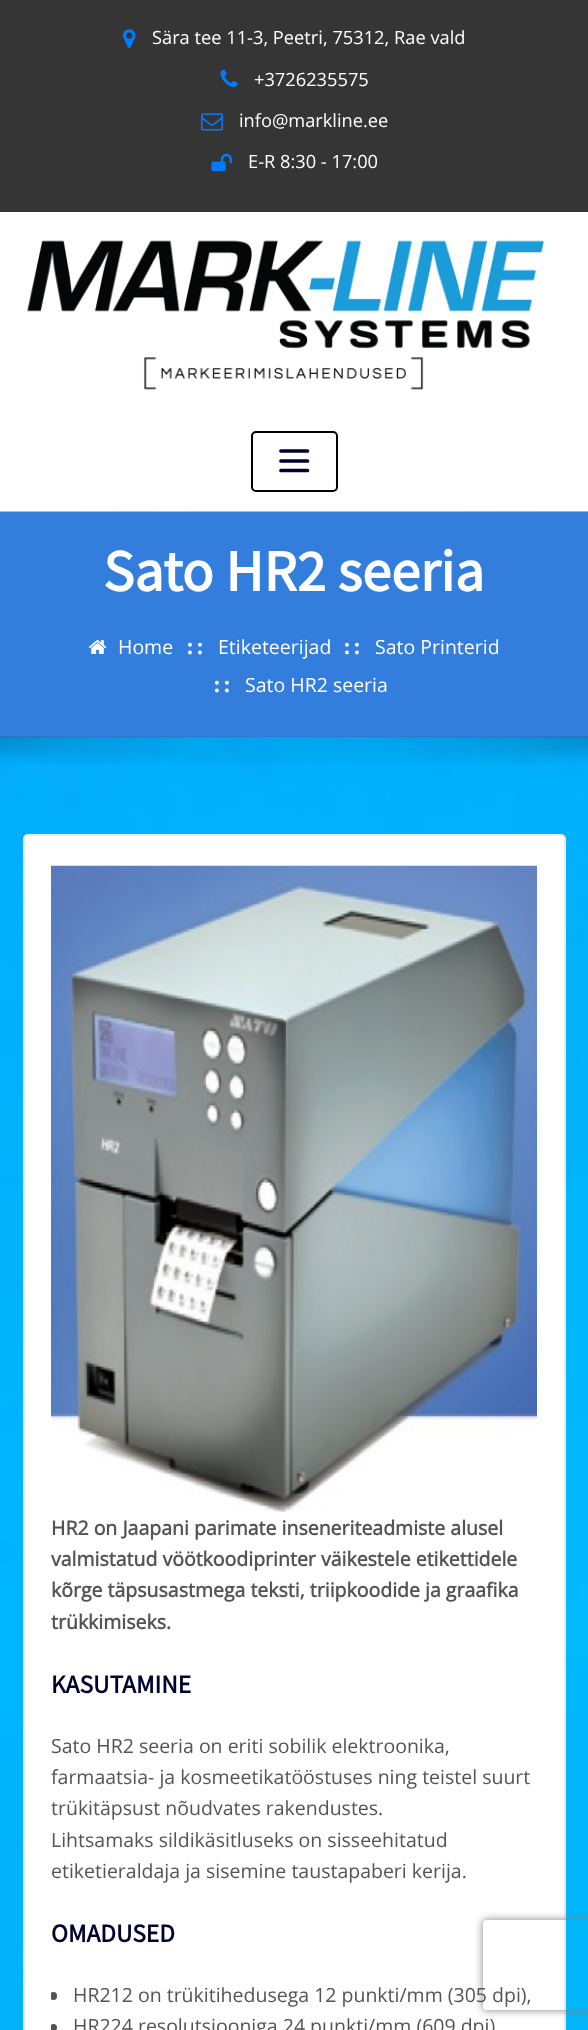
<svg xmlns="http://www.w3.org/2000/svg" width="588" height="2030">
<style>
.a{font:18.25px Open Sans;fill:#fff}
.b{font:bold 58.5px Source Sans Pro;fill:#fff}
.c{font:19.5px Open Sans;fill:#fff}
.d{font:bold 24px Liberation Serif;letter-spacing:2px;fill:#fff}
.e{font:bold 19.5px Open Sans;fill:#545454}
.f{font:bold 25.5px Source Sans Pro;fill:#01012f}
.g{font:19.5px Open Sans;fill:#545454}
</style>
<defs>
<clipPath id="clip1"><path d="M51 866h486v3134H51z"/></clipPath>
<clipPath id="clip2"><path d="M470 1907h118v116h-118zm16 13h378c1.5 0 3 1.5 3 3v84c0 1.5-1.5 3-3 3h-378c-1.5 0-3-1.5-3-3v-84c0-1.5 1.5-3 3-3z" clip-rule="evenodd"/></clipPath>
</defs>
<rect width="100%" height="100%" fill="#fff"/>
<image href="1.png" x="0" y="737" width="588" height="1293"/>
<path fill="#353535" d="M0 0h588v212H0z"/>
<image href="2.png" x="123" y="29" width="13" height="19"/>
<image href="3.png" x="220" y="69" width="18" height="18"/>
<image href="4.png" x="201" y="113" width="22" height="18"/>
<image href="5.png" x="211" y="153" width="21" height="18"/>
<image href="6.png" x="27" y="240" width="518" height="150"/>
<rect fill="none" stroke="#000" stroke-width="2" x="252" y="432" width="85" height="59" rx="4"/>
<path fill="none" stroke="#01012f" stroke-width="3.7" stroke-linecap="round" d="M281 451h26.5m-26.5 10h26.5m-26.5 9.5h26.5"/>
<image href="7.png" x="0" y="511" width="588" height="1"/>
<path fill="#337ddd" d="M0 512h588v225H0z"/>
<image href="8.png" x="88" y="640" width="19" height="14"/>
<image href="9.png" x="0" y="736" width="588" height="28"/>
<rect fill="#fff" stroke="#e9e9e9" stroke-width="2" x="24" y="835" width="541" height="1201" rx="4"/>
<image href="10.png" x="51" y="865" width="486" height="647"/>
<g clip-path="url(#clip1)">
<rect fill="#545454" x="50" y="1992" width="7" height="8" rx="3.5"/>
<circle fill="#545454" cx="53.5" cy="2027.5" r="3.5"/>
</g>
<g clip-path="url(#clip2)">
<rect fill="#808080" filter="blur(4px)" x="483" y="1920" width="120" height="90" rx="3"/>
</g>
<text class="a" x="152" y="44">Sära tee 11-3, Peetri, 75312, Rae vald</text>
<text class="a" x="254" y="86">+3726235575</text>
<text class="a" x="239" y="127">info@markline.ee</text>
<text class="a" x="248" y="168">E-R 8:30 - 17:00</text>
<text class="b" x="103" y="591">Sato HR2 seeria</text>
<text class="c" x="118" y="654">Home</text>
<text class="d" x="186" y="654">::</text>
<text class="c" x="218" y="654">Etiketeerijad</text>
<text class="d" x="343" y="654">::</text>
<text class="c" x="375" y="654">Sato Printerid</text>
<text class="d" x="213" y="692">::</text>
<text class="c" x="245" y="692">Sato HR2 seeria</text>
<text class="e" x="51" y="1535">HR2 on Jaapani parimate inseneriteadmiste alusel</text>
<text class="e" x="51" y="1566">valmistatud vöötkoodiprinter väikestele etikettidele</text>
<text class="e" x="51" y="1597">kõrge täpsusastmega teksti, triipkoodide ja graafika</text>
<text class="e" x="51" y="1629">trükkimiseks.</text>
<text class="f" x="51" y="1693">KASUTAMINE</text>
<text class="g" x="51" y="1753">Sato HR2 seeria on eriti sobilik elektroonika,</text>
<text class="g" x="51" y="1784">farmaatsia- ja kosmeetikatööstuses ning teistel suurt</text>
<text class="g" x="51" y="1815">trükitäpsust nõudvates rakendustes.</text>
<text class="g" x="51" y="1847">Lihtsamaks sildikäsitluseks on sisseehitatud</text>
<text class="g" x="51" y="1878">etiketieraldaja ja sisemine taustapaberi kerija.</text>
<text class="f" x="51" y="1942">OMADUSED</text>
<text class="g" x="73" y="2002">HR212 on trükitihedusega 12 punkti/mm (305 dpi),</text>
<text class="g" x="73" y="2033">HR224 resolutsiooniga 24 punkti/mm (609 dpi)</text>
</svg>
